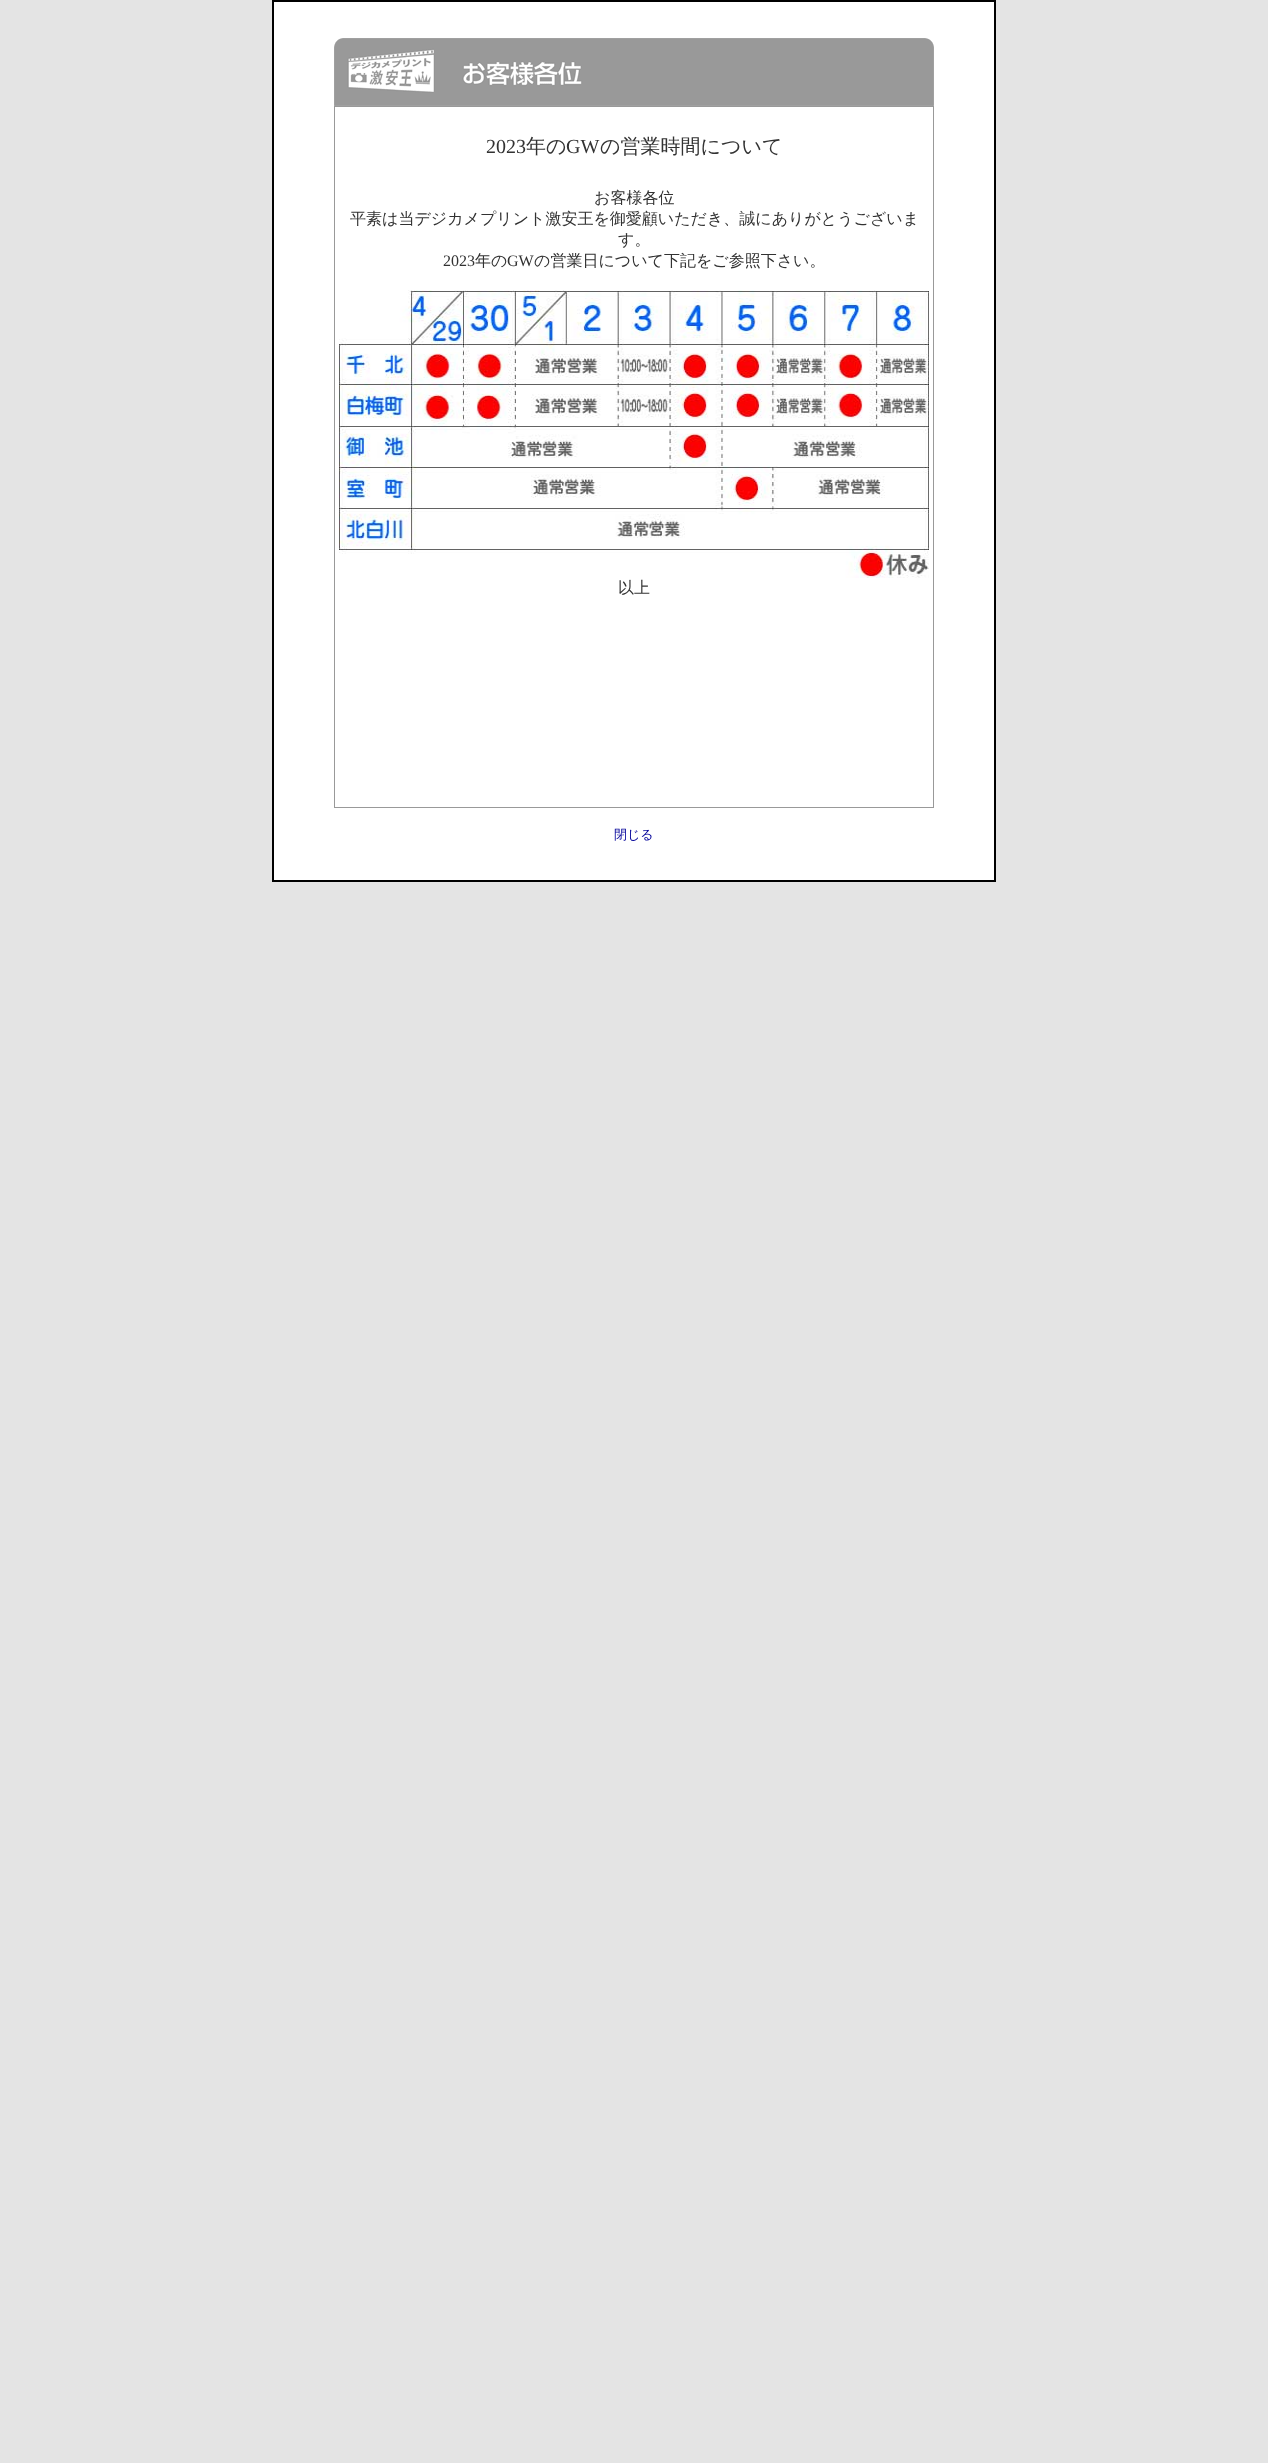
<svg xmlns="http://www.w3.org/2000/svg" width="1268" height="2463">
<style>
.a{font:20px Liberation Serif;fill:#323232}
.b{font:500 20px WenQuanYi Zen Hei;fill:#323232}
.c{font:500 16px WenQuanYi Zen Hei;fill:#323232}
.d{font:16px Liberation Serif;fill:#323232}
.e{font:500 13px WenQuanYi Zen Hei;fill:#009}
</style>
<rect width="100%" height="100%" fill="#e4e4e4"/>
<path fill="#000" d="M272 0h724v882H272z"/>
<path fill="#fff" d="M274 2h720v878H274z"/>
<image href="1.png" x="334" y="38" width="600" height="68"/>
<path fill="#999" d="M334 106h600v702H334z"/>
<path fill="#fff" d="M335 107h598v700H335z"/>
<image href="2.png" x="339" y="290" width="590" height="288"/>
<text class="a" x="486" y="153">2023</text>
<text class="b" x="526" y="153">年の</text>
<text class="a" x="566" y="153">GW</text>
<text class="b" x="600" y="153">の営業時間について</text>
<text class="c" x="594" y="203">お客様各位</text>
<text class="c" x="350" y="224">平素は当デジカメプリント激安王を御愛顧いただき、誠にありがとうございま</text>
<text class="c" x="618" y="245">す。</text>
<text class="d" x="443" y="266">2023</text>
<text class="c" x="475" y="266">年の</text>
<text class="d" x="507" y="266">GW</text>
<text class="c" x="534" y="266">の営業日について下記をご参照下さい。</text>
<text class="c" x="618" y="593">以上</text>
<text class="e" x="614" y="839">閉じる</text>
</svg>
